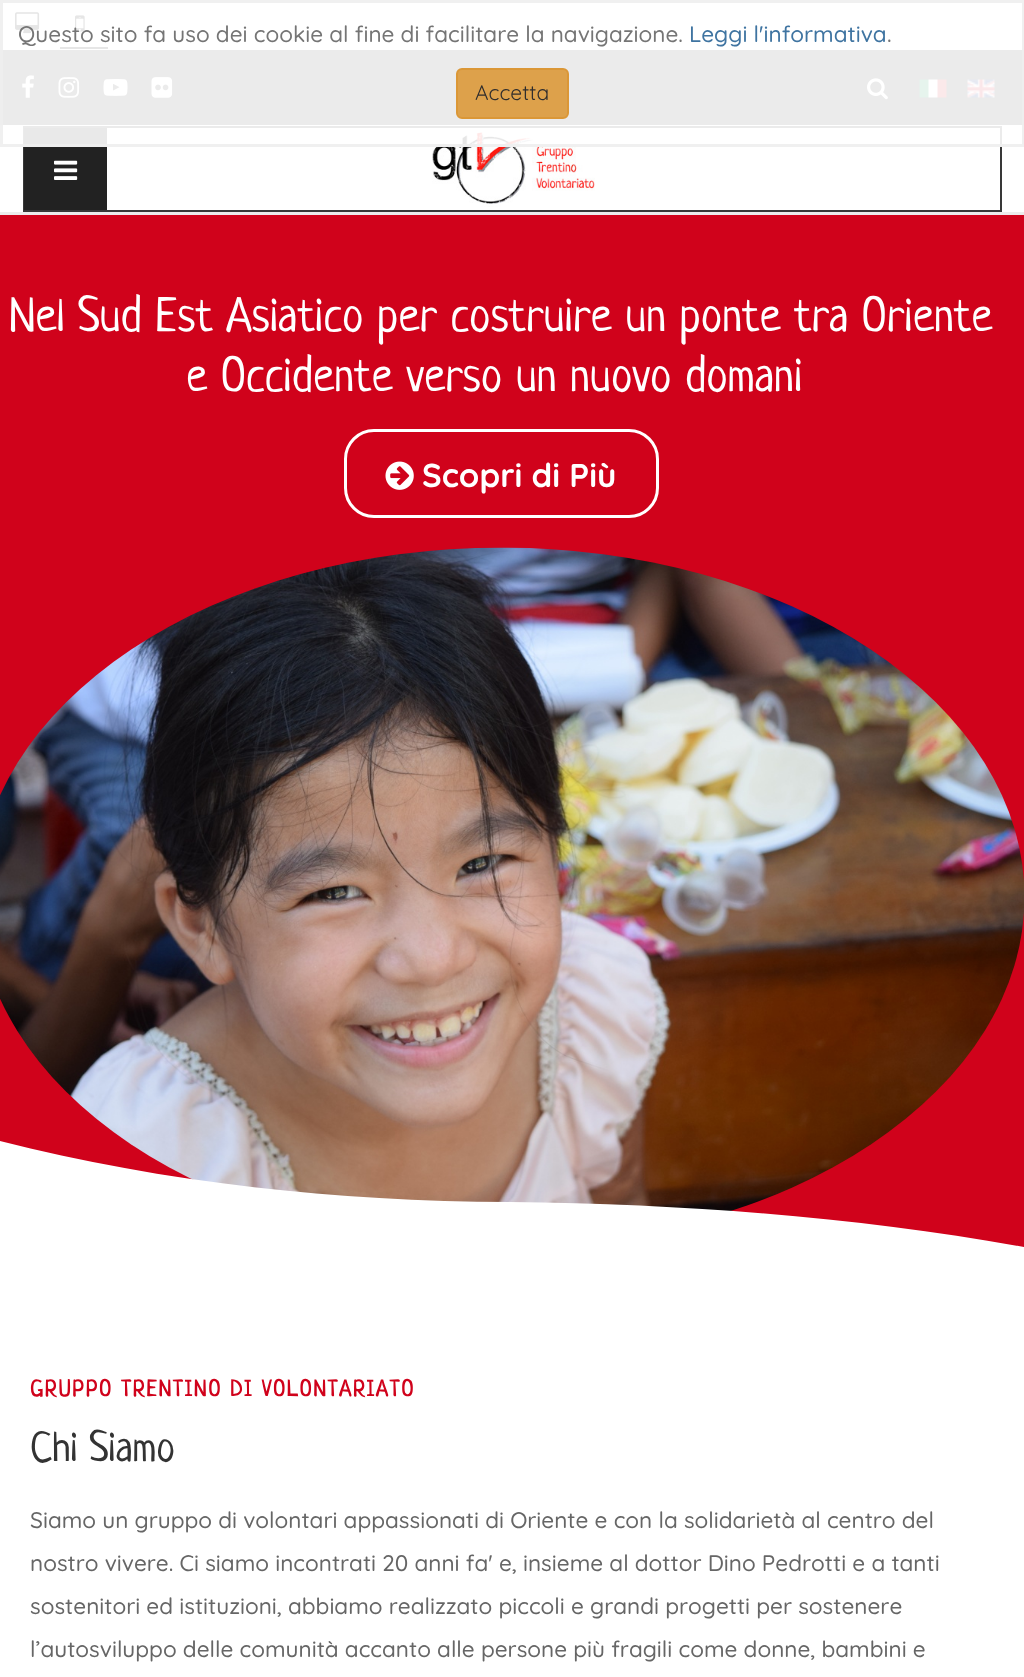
<svg xmlns="http://www.w3.org/2000/svg" width="1024" height="1677">
<style>*{font-kerning:none!important;font-variant-ligatures:none!important}</style>
<style>
.a{font:500 22.5px Quicksand;fill:#757575}
.b{font:500 22.5px Quicksand;fill:#3f74a1}
.c{font:21px Quicksand;fill:#2f2d2d}
.d{font:48px Neucha;fill:#fff}
.e{font:bold 33px Quicksand;fill:#fff}
.f{font:bold 22.5px Neucha;letter-spacing:1.95px;fill:#d0021b}
.g{font:42px Neucha;fill:#333}
.h{font:500 22.5px Quicksand;fill:#666}
</style>
<rect width="100%" height="100%" fill="#fff"/>
<image href="1.png" x="15" y="12" width="25" height="22"/>
<path fill="#000" d="M60 47h48v2H60z"/>
<image href="2.png" x="75" y="15" width="10" height="17"/>
<path fill="#333" d="M0 50h1024v75H0z"/>
<image href="3.png" x="22" y="75" width="12" height="23"/>
<image href="4.png" x="58" y="77" width="22" height="21"/>
<image href="5.png" x="103" y="79" width="25" height="17"/>
<image href="6.png" x="151" y="77" width="22" height="21"/>
<image href="7.png" x="867" y="78" width="21" height="22"/>
<image href="8.png" x="919" y="79" width="28" height="19"/>
<image href="9.png" x="967" y="79" width="28" height="19"/>
<image href="10.png" x="432" y="128" width="163" height="79"/>
<path fill="none" stroke="#383838" stroke-width="2" d="M24 127h977v84H24z"/>
<path fill="#222" d="M24 128h83v82H24z"/>
<path fill="#ffffffe6" d="M0 12h1024v135H0z"/>
<path fill="none" stroke="#eeeeeee6" stroke-width="3" d="M1.5 1.5h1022v144H1.5z"/>
<rect fill="#dda14b" stroke="#db9736" stroke-width="2" x="457" y="69" width="111" height="49" rx="5"/>
<path fill="#ececec" d="M0 212h1024v3H0z"/>
<image href="11.png" x="54" y="160" width="24" height="20"/>
<path fill="#d0021b" d="M0 215h1024v1032H0z"/>
<rect fill="none" stroke="#fff" stroke-width="3" x="345.5" y="430.5" width="312" height="86" rx="28.5"/>
<image href="12.png" x="385" y="461" width="29" height="29"/>
<image href="13.png" x="0" y="547" width="1024" height="664"/>
<path fill="#fff" d="M-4 1140c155 40 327 61 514 62c187 2 359 17 514 45h-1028z"/>
<text class="a" x="18" y="42">Questo sito fa uso dei cookie al fine di facilitare la navigazione.</text>
<text class="b" x="689" y="42">Leggi l'informativa</text>
<text class="a" x="887" y="42">.</text>
<text class="c" x="475" y="100">Accetta</text>
<text class="d" x="9" y="331">Nel Sud Est Asiatico per costruire un ponte tra Oriente</text>
<text class="d" x="186" y="391">e Occidente verso un nuovo domani</text>
<text class="e" x="422" y="487">Scopri di Più</text>
<text class="f" x="30" y="1396">GRUPPO TRENTINO DI VOLONTARIATO</text>
<text class="g" x="30" y="1461">Chi Siamo</text>
<text class="h" x="30" y="1528">Siamo un gruppo di volontari appassionati di Oriente e con la solidarietà al centro del</text>
<text class="h" x="30" y="1571">nostro vivere. Ci siamo incontrati 20 anni fa' e, insieme al dottor Dino Pedrotti e a tanti</text>
<text class="h" x="30" y="1614">sostenitori ed istituzioni, abbiamo realizzato piccoli e grandi progetti per sostenere</text>
<text class="h" x="30" y="1657">l’autosviluppo delle comunità accanto alle persone più fragili come donne, bambini e</text>
</svg>
